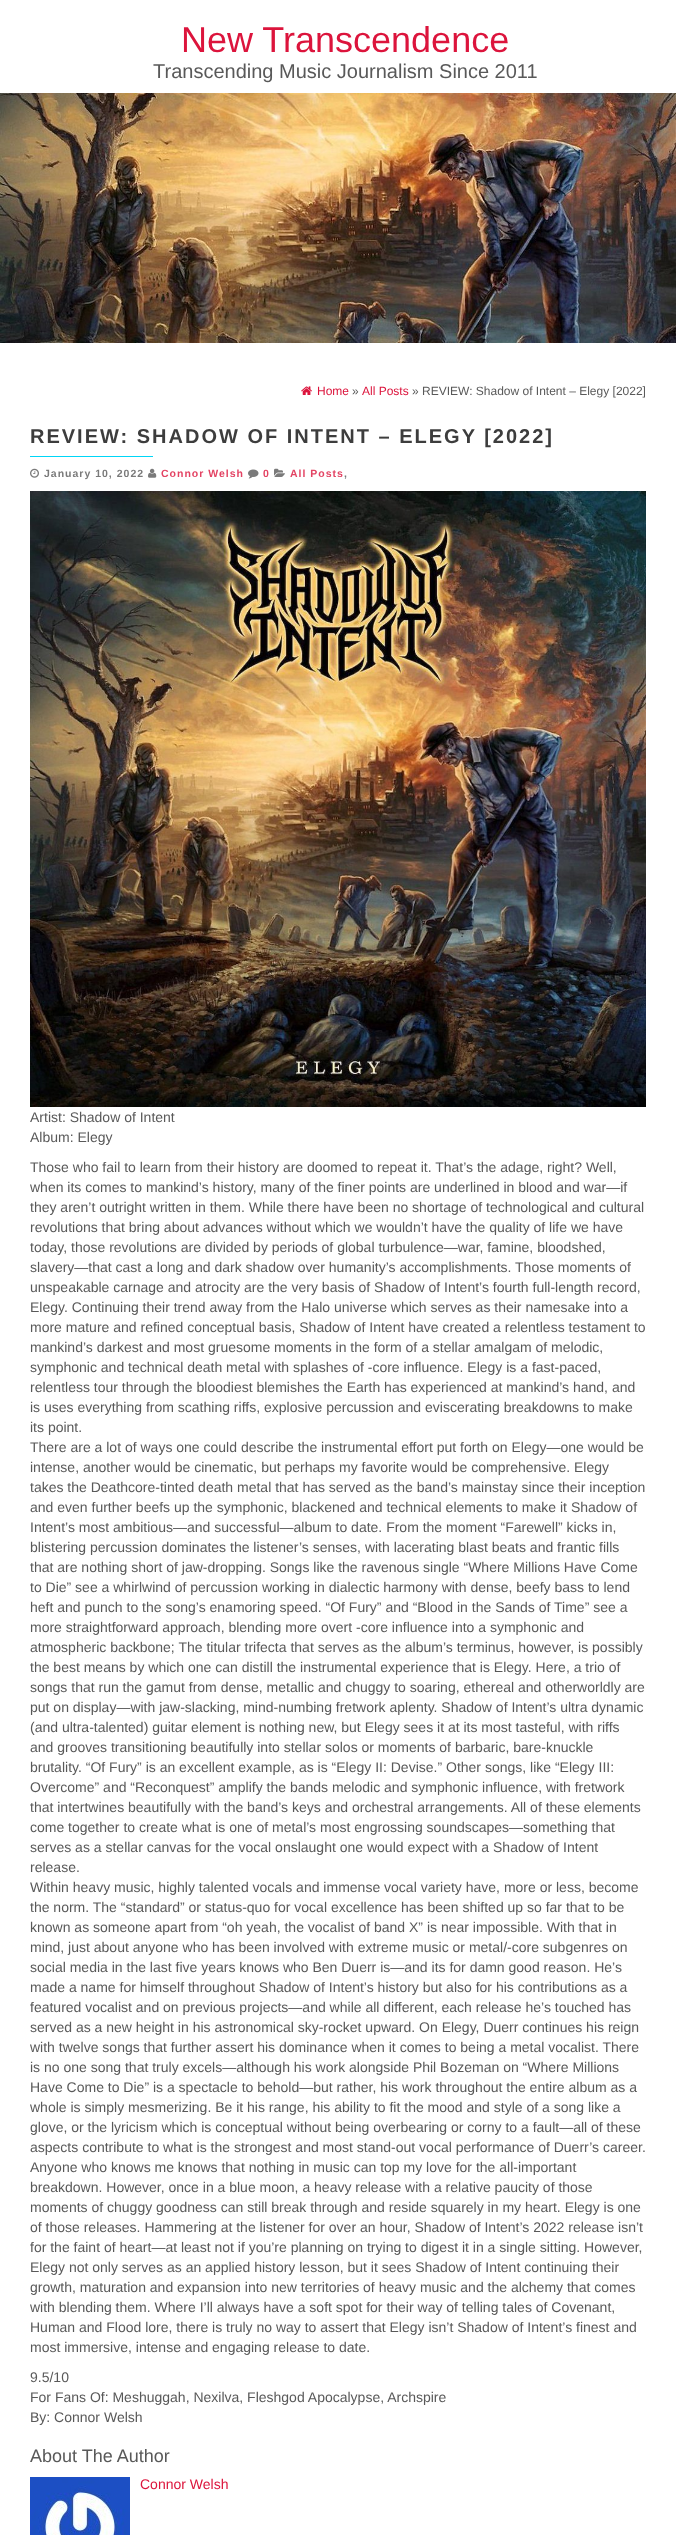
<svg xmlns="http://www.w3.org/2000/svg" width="676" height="2535">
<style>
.a{font:36px Liberation Sans;fill:#dc143c}
.b{font:20px Liberation Sans;fill:#595959}
.c{font:12px Liberation Sans;fill:#dc143c}
.d{font:12px Liberation Sans;fill:#595959}
.e{font:bold 20px Liberation Sans;letter-spacing:2px;fill:#3d3d3d}
.f{font:bold 10.5px Liberation Sans;letter-spacing:1px;fill:#7a7a7a}
.g{font:bold 10.5px Liberation Sans;letter-spacing:1px;fill:#e34363}
.h{font:14px Liberation Sans;fill:#595959}
.i{font:18px Liberation Sans;fill:#595959}
.j{font:14px Liberation Sans;fill:#dc143c}
</style>
<rect width="100%" height="100%" fill="#fff"/>
<image href="1.png" x="0" y="93" width="676" height="250"/>
<image href="2.png" x="301" y="386" width="11" height="9"/>
<path fill="#00d6f7" d="M30 456h123v1H30z"/>
<image href="3.png" x="30" y="468" width="9" height="10"/>
<image href="4.png" x="148" y="468" width="9" height="10"/>
<image href="5.png" x="248" y="469" width="11" height="10"/>
<image href="6.png" x="274" y="468" width="11" height="9"/>
<image href="7.png" x="30" y="491" width="616" height="616"/>
<image href="8.png" x="30" y="2477" width="100" height="58"/>
<text class="a" x="181" y="52">New Transcendence</text>
<text class="b" x="153" y="78">Transcending Music Journalism Since 2011</text>
<text class="c" x="317" y="395">Home</text>
<text class="d" x="352" y="395">»</text>
<text class="c" x="362" y="395">All Posts</text>
<text class="d" x="412" y="395">» REVIEW: Shadow of Intent – Elegy [2022]</text>
<text class="e" x="30" y="443">REVIEW: SHADOW OF INTENT – ELEGY [2022]</text>
<text class="f" x="44" y="477">January 10, 2022</text>
<text class="g" x="161" y="477">Connor Welsh</text>
<text class="g" x="263" y="477">0</text>
<text class="g" x="290" y="477">All Posts</text>
<text class="f" x="344" y="477">,</text>
<text class="h" x="30" y="1122">Artist: Shadow of Intent</text>
<text class="h" x="30" y="1142">Album: Elegy</text>
<text class="h" x="30" y="1172">Those who fail to learn from their history are doomed to repeat it. That’s the adage, right? Well,</text>
<text class="h" x="30" y="1192">when its comes to mankind’s history, many of the finer points are underlined in blood and war—if</text>
<text class="h" x="30" y="1212">they aren’t outright written in them. While there have been no shortage of technological and cultural</text>
<text class="h" x="30" y="1232">revolutions that bring about advances without which we wouldn’t have the quality of life we have</text>
<text class="h" x="30" y="1252">today, those revolutions are divided by periods of global turbulence—war, famine, bloodshed,</text>
<text class="h" x="30" y="1272">slavery—that cast a long and dark shadow over humanity’s accomplishments. Those moments of</text>
<text class="h" x="30" y="1292">unspeakable carnage and atrocity are the very basis of Shadow of Intent’s fourth full-length record,</text>
<text class="h" x="30" y="1312">Elegy. Continuing their trend away from the Halo universe which serves as their namesake into a</text>
<text class="h" x="30" y="1332">more mature and refined conceptual basis, Shadow of Intent have created a relentless testament to</text>
<text class="h" x="30" y="1352">mankind’s darkest and most gruesome moments in the form of a stellar amalgam of melodic,</text>
<text class="h" x="30" y="1372">symphonic and technical death metal with splashes of -core influence. Elegy is a fast-paced,</text>
<text class="h" x="30" y="1392">relentless tour through the bloodiest blemishes the Earth has experienced at mankind’s hand, and</text>
<text class="h" x="30" y="1412">is uses everything from scathing riffs, explosive percussion and eviscerating breakdowns to make</text>
<text class="h" x="30" y="1432">its point.</text>
<text class="h" x="30" y="1452">There are a lot of ways one could describe the instrumental effort put forth on Elegy—one would be</text>
<text class="h" x="30" y="1472">intense, another would be cinematic, but perhaps my favorite would be comprehensive. Elegy</text>
<text class="h" x="30" y="1492">takes the Deathcore-tinted death metal that has served as the band’s mainstay since their inception</text>
<text class="h" x="30" y="1512">and even further beefs up the symphonic, blackened and technical elements to make it Shadow of</text>
<text class="h" x="30" y="1532">Intent’s most ambitious—and successful—album to date. From the moment “Farewell” kicks in,</text>
<text class="h" x="30" y="1552">blistering percussion dominates the listener’s senses, with lacerating blast beats and frantic fills</text>
<text class="h" x="30" y="1572">that are nothing short of jaw-dropping. Songs like the ravenous single “Where Millions Have Come</text>
<text class="h" x="30" y="1592">to Die” see a whirlwind of percussion working in dialectic harmony with dense, beefy bass to lend</text>
<text class="h" x="30" y="1612">heft and punch to the song’s enamoring speed. “Of Fury” and “Blood in the Sands of Time” see a</text>
<text class="h" x="30" y="1632">more straightforward approach, blending more overt -core influence into a symphonic and</text>
<text class="h" x="30" y="1652">atmospheric backbone; The titular trifecta that serves as the album’s terminus, however, is possibly</text>
<text class="h" x="30" y="1672">the best means by which one can distill the instrumental experience that is Elegy. Here, a trio of</text>
<text class="h" x="30" y="1692">songs that run the gamut from dense, metallic and chuggy to soaring, ethereal and otherworldly are</text>
<text class="h" x="30" y="1712">put on display—with jaw-slacking, mind-numbing fretwork aplenty. Shadow of Intent’s ultra dynamic</text>
<text class="h" x="30" y="1732">(and ultra-talented) guitar element is nothing new, but Elegy sees it at its most tasteful, with riffs</text>
<text class="h" x="30" y="1752">and grooves transitioning beautifully into stellar solos or moments of barbaric, bare-knuckle</text>
<text class="h" x="30" y="1772">brutality. “Of Fury” is an excellent example, as is “Elegy II: Devise.” Other songs, like “Elegy III:</text>
<text class="h" x="30" y="1792">Overcome” and “Reconquest” amplify the bands melodic and symphonic influence, with fretwork</text>
<text class="h" x="30" y="1812">that intertwines beautifully with the band’s keys and orchestral arrangements. All of these elements</text>
<text class="h" x="30" y="1832">come together to create what is one of metal’s most engrossing soundscapes—something that</text>
<text class="h" x="30" y="1852">serves as a stellar canvas for the vocal onslaught one would expect with a Shadow of Intent</text>
<text class="h" x="30" y="1872">release.</text>
<text class="h" x="30" y="1892">Within heavy music, highly talented vocals and immense vocal variety have, more or less, become</text>
<text class="h" x="30" y="1912">the norm. The “standard” or status-quo for vocal excellence has been shifted up so far that to be</text>
<text class="h" x="30" y="1932">known as someone apart from “oh yeah, the vocalist of band X” is near impossible. With that in</text>
<text class="h" x="30" y="1952">mind, just about anyone who has been involved with extreme music or metal/-core subgenres on</text>
<text class="h" x="30" y="1972">social media in the last five years knows who Ben Duerr is—and its for damn good reason. He’s</text>
<text class="h" x="30" y="1992">made a name for himself throughout Shadow of Intent’s history but also for his contributions as a</text>
<text class="h" x="30" y="2012">featured vocalist and on previous projects—and while all different, each release he’s touched has</text>
<text class="h" x="30" y="2032">served as a new height in his astronomical sky-rocket upward. On Elegy, Duerr continues his reign</text>
<text class="h" x="30" y="2052">with twelve songs that further assert his dominance when it comes to being a metal vocalist. There</text>
<text class="h" x="30" y="2072">is no one song that truly excels—although his work alongside Phil Bozeman on “Where Millions</text>
<text class="h" x="30" y="2092">Have Come to Die” is a spectacle to behold—but rather, his work throughout the entire album as a</text>
<text class="h" x="30" y="2112">whole is simply mesmerizing. Be it his range, his ability to fit the mood and style of a song like a</text>
<text class="h" x="30" y="2132">glove, or the lyricism which is conceptual without being overbearing or corny to a fault—all of these</text>
<text class="h" x="30" y="2152">aspects contribute to what is the strongest and most stand-out vocal performance of Duerr’s career.</text>
<text class="h" x="30" y="2172">Anyone who knows me knows that nothing in music can top my love for the all-important</text>
<text class="h" x="30" y="2192">breakdown. However, once in a blue moon, a heavy release with a relative paucity of those</text>
<text class="h" x="30" y="2212">moments of chuggy goodness can still break through and reside squarely in my heart. Elegy is one</text>
<text class="h" x="30" y="2232">of those releases. Hammering at the listener for over an hour, Shadow of Intent’s 2022 release isn’t</text>
<text class="h" x="30" y="2252">for the faint of heart—at least not if you’re planning on trying to digest it in a single sitting. However,</text>
<text class="h" x="30" y="2272">Elegy not only serves as an applied history lesson, but it sees Shadow of Intent continuing their</text>
<text class="h" x="30" y="2292">growth, maturation and expansion into new territories of heavy music and the alchemy that comes</text>
<text class="h" x="30" y="2312">with blending them. Where I’ll always have a soft spot for their way of telling tales of Covenant,</text>
<text class="h" x="30" y="2332">Human and Flood lore, there is truly no way to assert that Elegy isn’t Shadow of Intent’s finest and</text>
<text class="h" x="30" y="2352">most immersive, intense and engaging release to date.</text>
<text class="h" x="30" y="2382">9.5/10</text>
<text class="h" x="30" y="2402">For Fans Of: Meshuggah, Nexilva, Fleshgod Apocalypse, Archspire</text>
<text class="h" x="30" y="2422">By: Connor Welsh</text>
<text class="i" x="30" y="2462">About The Author</text>
<text class="j" x="140" y="2489">Connor Welsh</text>
</svg>
